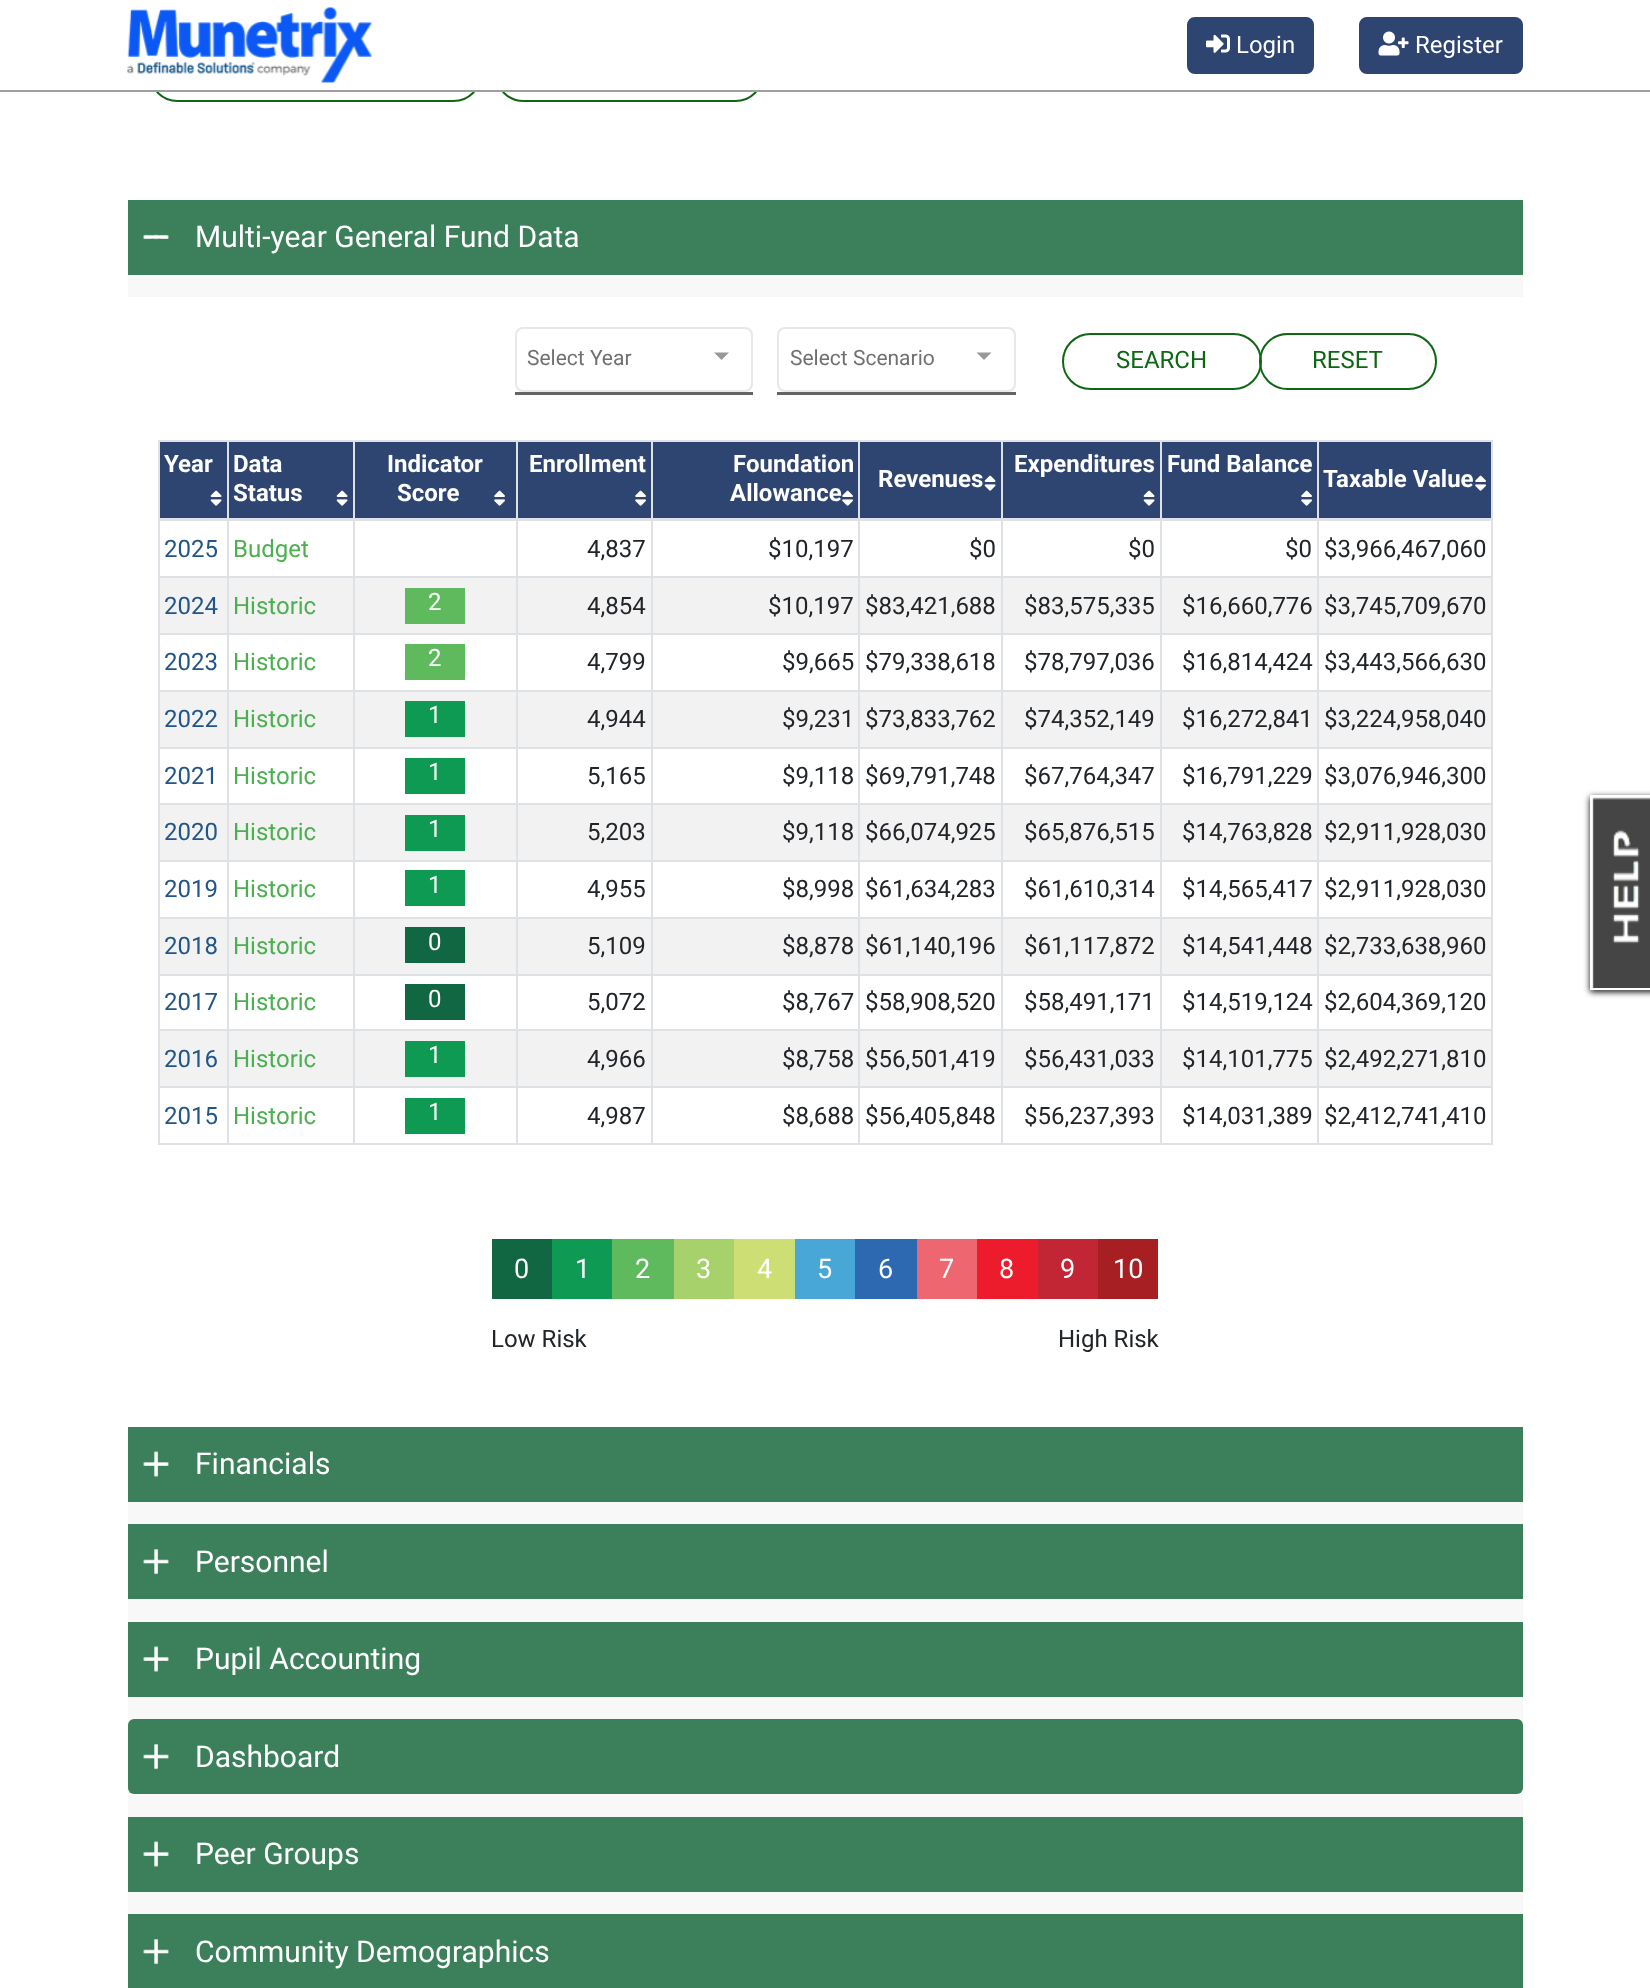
<svg xmlns="http://www.w3.org/2000/svg" width="1650" height="1988">
<style>
.a{font:24px 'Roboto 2';fill:#fff}
.b{font:30px Roboto;fill:#fff}
.c{font:21px Roboto;fill:#707070}
.d{font:24px Roboto;fill:#0f6614}
.e{font:bold 24px Roboto;fill:#fff}
.f{font:24px Roboto;fill:#258}
.g{font:24px Roboto;fill:#4caf50}
.h{font:24px Roboto;fill:#212529}
.i{font:24px Roboto;fill:#fff}
.j{font:27px Roboto;fill:#fff}
</style>
<rect width="100%" height="100%" fill="#fff"/>
<rect fill="none" stroke="#0f6614" stroke-width="2" x="150" y="46" width="331" height="55" rx="27.5"/>
<rect fill="none" stroke="#0f6614" stroke-width="2" x="496" y="46" width="267" height="55" rx="27.5"/>
<path fill="#fff" d="M149 45h615v45H149z"/>
<path fill="#9f9f9f" d="M0 90h1650v2H0z"/>
<image href="1.png" x="127" y="7" width="245" height="76"/>
<rect fill="#2e4471" stroke="#2e4471" stroke-width="2" x="1188" y="18" width="125" height="55" rx="7"/>
<image href="2.png" x="1206" y="34" width="24" height="19"/>
<rect fill="#2e4471" stroke="#2e4471" stroke-width="2" x="1360" y="18" width="162" height="55" rx="7"/>
<image href="3.png" x="1378" y="31" width="31" height="25"/>
<path fill="#f8f8f8" d="M128 275h1395v22H128z"/>
<path fill="#3c805b" d="M128 200h1395v75H128z"/>
<image href="4.png" x="143" y="234" width="26" height="6"/>
<path fill="#646464" d="M515 392h238v3H515z"/>
<rect fill="none" stroke="#e8e8e8" stroke-width="2" x="516" y="328" width="236" height="63" rx="7"/>
<path fill="#999" d="M714 352.5h15l-7.5 7.5z"/>
<path fill="#646464" d="M777 392h239v3H777z"/>
<rect fill="none" stroke="#e8e8e8" stroke-width="2" x="778" y="328" width="237" height="63" rx="7"/>
<path fill="#999" d="M976.5 352.5h15l-7.5 7.5z"/>
<rect fill="none" stroke="#0f6614" stroke-width="2" x="1063" y="334" width="198" height="55" rx="27.5"/>
<rect fill="none" stroke="#0f6614" stroke-width="2" x="1260" y="334" width="176" height="55" rx="27.5"/>
<path fill="#2e4471" d="M160 442h1331v76H160z"/>
<path fill="#dee2e6" d="M1317 440h176v2H1317z"/>
<path fill="#dee2e6" d="M1317 576h176v2H1317z"/>
<path fill="#f2f2f2" d="M160 578h1331v55H160z"/>
<path fill="#dee2e6" d="M1317 633h176v2H1317z"/>
<path fill="#dee2e6" d="M1317 690h176v2H1317z"/>
<path fill="#f2f2f2" d="M160 692h1331v55H160z"/>
<path fill="#dee2e6" d="M1317 747h176v2H1317z"/>
<path fill="#dee2e6" d="M1317 803h176v2H1317z"/>
<path fill="#f2f2f2" d="M160 805h1331v55H160z"/>
<path fill="#dee2e6" d="M1317 860h176v2H1317z"/>
<path fill="#dee2e6" d="M1317 917h176v2H1317z"/>
<path fill="#f2f2f2" d="M160 919h1331v55H160z"/>
<path fill="#dee2e6" d="M1317 974h176v2H1317z"/>
<path fill="#dee2e6" d="M1317 1029h176v2H1317z"/>
<path fill="#f2f2f2" d="M160 1031h1331v55H160z"/>
<path fill="#dee2e6" d="M1317 1086h176v2H1317z"/>
<path fill="#dee2e6" d="M1491 1086h2v59H1491z"/>
<path fill="#dee2e6" d="M1317 1143h176v2H1317z"/>
<path fill="#dee2e6" d="M1317 1086h2v59H1317z"/>
<path fill="#dee2e6" d="M1160 1086h159v2H1160z"/>
<path fill="#dee2e6" d="M1317 1029h2v59H1317z"/>
<path fill="#dee2e6" d="M1160 1029h159v2H1160z"/>
<path fill="#dee2e6" d="M1317 974h2v57H1317z"/>
<path fill="#dee2e6" d="M1160 974h159v2H1160z"/>
<path fill="#dee2e6" d="M1317 917h2v58H1317z"/>
<path fill="#dee2e6" d="M1160 917h159v2H1160z"/>
<path fill="#dee2e6" d="M1317 860h2v58H1317z"/>
<path fill="#dee2e6" d="M1160 860h159v2H1160z"/>
<path fill="#dee2e6" d="M1317 803h2v58H1317z"/>
<path fill="#dee2e6" d="M1160 803h159v2H1160z"/>
<path fill="#dee2e6" d="M1317 747h2v57H1317z"/>
<path fill="#dee2e6" d="M1160 747h159v2H1160z"/>
<path fill="#dee2e6" d="M1317 690h2v59H1317z"/>
<path fill="#dee2e6" d="M1160 690h159v2H1160z"/>
<path fill="#dee2e6" d="M1317 633h2v59H1317z"/>
<path fill="#dee2e6" d="M1160 633h159v2H1160z"/>
<path fill="#dee2e6" d="M1317 576h2v59H1317z"/>
<path fill="#dee2e6" d="M1160 576h159v2H1160z"/>
<path fill="#dee2e6" d="M1317 519h2v59H1317z"/>
<path fill="#dee2e6" d="M1317 440h2v81H1317z"/>
<path fill="#dee2e6" d="M1160 440h159v2H1160z"/>
<path fill="#dee2e6" d="M1160 1143h159v2H1160z"/>
<path fill="#dee2e6" d="M1160 1086h2v59H1160z"/>
<path fill="#dee2e6" d="M1001 1086h160v2H1001z"/>
<path fill="#dee2e6" d="M1160 1029h2v59H1160z"/>
<path fill="#dee2e6" d="M1001 1029h160v2H1001z"/>
<path fill="#dee2e6" d="M1160 974h2v57H1160z"/>
<path fill="#dee2e6" d="M1001 974h160v2H1001z"/>
<path fill="#dee2e6" d="M1160 917h2v58H1160z"/>
<path fill="#dee2e6" d="M1001 917h160v2H1001z"/>
<path fill="#dee2e6" d="M1160 860h2v58H1160z"/>
<path fill="#dee2e6" d="M1001 860h160v2H1001z"/>
<path fill="#dee2e6" d="M1160 803h2v58H1160z"/>
<path fill="#dee2e6" d="M1001 803h160v2H1001z"/>
<path fill="#dee2e6" d="M1160 747h2v57H1160z"/>
<path fill="#dee2e6" d="M1001 747h160v2H1001z"/>
<path fill="#dee2e6" d="M1160 690h2v59H1160z"/>
<path fill="#dee2e6" d="M1001 690h160v2H1001z"/>
<path fill="#dee2e6" d="M1160 633h2v59H1160z"/>
<path fill="#dee2e6" d="M1001 633h160v2H1001z"/>
<path fill="#dee2e6" d="M1160 576h2v59H1160z"/>
<path fill="#dee2e6" d="M1001 576h160v2H1001z"/>
<path fill="#dee2e6" d="M1160 519h2v59H1160z"/>
<path fill="#dee2e6" d="M1160 440h2v81H1160z"/>
<path fill="#dee2e6" d="M1001 440h160v2H1001z"/>
<path fill="#dee2e6" d="M1001 1143h160v2H1001z"/>
<path fill="#dee2e6" d="M1001 1086h2v59H1001z"/>
<path fill="#dee2e6" d="M858 1086h144v2H858z"/>
<path fill="#dee2e6" d="M1001 1029h2v59H1001z"/>
<path fill="#dee2e6" d="M858 1029h144v2H858z"/>
<path fill="#dee2e6" d="M1001 974h2v57H1001z"/>
<path fill="#dee2e6" d="M858 974h144v2H858z"/>
<path fill="#dee2e6" d="M1001 917h2v58H1001z"/>
<path fill="#dee2e6" d="M858 917h144v2H858z"/>
<path fill="#dee2e6" d="M1001 860h2v58H1001z"/>
<path fill="#dee2e6" d="M858 860h144v2H858z"/>
<path fill="#dee2e6" d="M1001 803h2v58H1001z"/>
<path fill="#dee2e6" d="M858 803h144v2H858z"/>
<path fill="#dee2e6" d="M1001 747h2v57H1001z"/>
<path fill="#dee2e6" d="M858 747h144v2H858z"/>
<path fill="#dee2e6" d="M1001 690h2v59H1001z"/>
<path fill="#dee2e6" d="M858 690h144v2H858z"/>
<path fill="#dee2e6" d="M1001 633h2v59H1001z"/>
<path fill="#dee2e6" d="M858 633h144v2H858z"/>
<path fill="#dee2e6" d="M1001 576h2v59H1001z"/>
<path fill="#dee2e6" d="M858 576h144v2H858z"/>
<path fill="#dee2e6" d="M1001 519h2v59H1001z"/>
<path fill="#dee2e6" d="M1001 440h2v81H1001z"/>
<path fill="#dee2e6" d="M858 440h144v2H858z"/>
<path fill="#dee2e6" d="M858 1143h144v2H858z"/>
<path fill="#dee2e6" d="M858 1086h2v59H858z"/>
<path fill="#dee2e6" d="M651 1086h209v2H651z"/>
<path fill="#dee2e6" d="M858 1029h2v59H858z"/>
<path fill="#dee2e6" d="M651 1029h209v2H651z"/>
<path fill="#dee2e6" d="M858 974h2v57H858z"/>
<path fill="#dee2e6" d="M651 974h209v2H651z"/>
<path fill="#dee2e6" d="M858 917h2v58H858z"/>
<path fill="#dee2e6" d="M651 917h209v2H651z"/>
<path fill="#dee2e6" d="M858 860h2v58H858z"/>
<path fill="#dee2e6" d="M651 860h209v2H651z"/>
<path fill="#dee2e6" d="M858 803h2v58H858z"/>
<path fill="#dee2e6" d="M651 803h209v2H651z"/>
<path fill="#dee2e6" d="M858 747h2v57H858z"/>
<path fill="#dee2e6" d="M651 747h209v2H651z"/>
<path fill="#dee2e6" d="M858 690h2v59H858z"/>
<path fill="#dee2e6" d="M651 690h209v2H651z"/>
<path fill="#dee2e6" d="M858 633h2v59H858z"/>
<path fill="#dee2e6" d="M651 633h209v2H651z"/>
<path fill="#dee2e6" d="M858 576h2v59H858z"/>
<path fill="#dee2e6" d="M651 576h209v2H651z"/>
<path fill="#dee2e6" d="M858 519h2v59H858z"/>
<path fill="#dee2e6" d="M858 440h2v81H858z"/>
<path fill="#dee2e6" d="M651 440h209v2H651z"/>
<path fill="#dee2e6" d="M651 1143h209v2H651z"/>
<path fill="#dee2e6" d="M651 1086h2v59H651z"/>
<path fill="#dee2e6" d="M516 1086h137v2H516z"/>
<path fill="#dee2e6" d="M651 1029h2v59H651z"/>
<path fill="#dee2e6" d="M516 1029h137v2H516z"/>
<path fill="#dee2e6" d="M651 974h2v57H651z"/>
<path fill="#dee2e6" d="M516 974h137v2H516z"/>
<path fill="#dee2e6" d="M651 917h2v58H651z"/>
<path fill="#dee2e6" d="M516 917h137v2H516z"/>
<path fill="#dee2e6" d="M651 860h2v58H651z"/>
<path fill="#dee2e6" d="M516 860h137v2H516z"/>
<path fill="#dee2e6" d="M651 803h2v58H651z"/>
<path fill="#dee2e6" d="M516 803h137v2H516z"/>
<path fill="#dee2e6" d="M651 747h2v57H651z"/>
<path fill="#dee2e6" d="M516 747h137v2H516z"/>
<path fill="#dee2e6" d="M651 690h2v59H651z"/>
<path fill="#dee2e6" d="M516 690h137v2H516z"/>
<path fill="#dee2e6" d="M651 633h2v59H651z"/>
<path fill="#dee2e6" d="M516 633h137v2H516z"/>
<path fill="#dee2e6" d="M651 576h2v59H651z"/>
<path fill="#dee2e6" d="M516 576h137v2H516z"/>
<path fill="#dee2e6" d="M651 519h2v59H651z"/>
<path fill="#dee2e6" d="M651 440h2v81H651z"/>
<path fill="#dee2e6" d="M516 440h137v2H516z"/>
<path fill="#dee2e6" d="M516 1143h137v2H516z"/>
<path fill="#dee2e6" d="M516 1086h2v59H516z"/>
<path fill="#dee2e6" d="M353 1086h165v2H353z"/>
<path fill="#dee2e6" d="M516 1029h2v59H516z"/>
<path fill="#dee2e6" d="M353 1029h165v2H353z"/>
<path fill="#dee2e6" d="M516 974h2v57H516z"/>
<path fill="#dee2e6" d="M353 974h165v2H353z"/>
<path fill="#dee2e6" d="M516 917h2v58H516z"/>
<path fill="#dee2e6" d="M353 917h165v2H353z"/>
<path fill="#dee2e6" d="M516 860h2v58H516z"/>
<path fill="#dee2e6" d="M353 860h165v2H353z"/>
<path fill="#dee2e6" d="M516 803h2v58H516z"/>
<path fill="#dee2e6" d="M353 803h165v2H353z"/>
<path fill="#dee2e6" d="M516 747h2v57H516z"/>
<path fill="#dee2e6" d="M353 747h165v2H353z"/>
<path fill="#dee2e6" d="M516 690h2v59H516z"/>
<path fill="#dee2e6" d="M353 690h165v2H353z"/>
<path fill="#dee2e6" d="M516 633h2v59H516z"/>
<path fill="#dee2e6" d="M353 633h165v2H353z"/>
<path fill="#dee2e6" d="M516 576h2v59H516z"/>
<path fill="#dee2e6" d="M353 576h165v2H353z"/>
<path fill="#dee2e6" d="M516 519h2v59H516z"/>
<path fill="#dee2e6" d="M516 440h2v81H516z"/>
<path fill="#dee2e6" d="M353 440h165v2H353z"/>
<path fill="#dee2e6" d="M353 1143h165v2H353z"/>
<path fill="#dee2e6" d="M353 1086h2v59H353z"/>
<path fill="#dee2e6" d="M227 1086h127v2H227z"/>
<path fill="#dee2e6" d="M353 1029h2v59H353z"/>
<path fill="#dee2e6" d="M227 1029h127v2H227z"/>
<path fill="#dee2e6" d="M353 974h2v57H353z"/>
<path fill="#dee2e6" d="M227 974h127v2H227z"/>
<path fill="#dee2e6" d="M353 917h2v58H353z"/>
<path fill="#dee2e6" d="M227 917h127v2H227z"/>
<path fill="#dee2e6" d="M353 860h2v58H353z"/>
<path fill="#dee2e6" d="M227 860h127v2H227z"/>
<path fill="#dee2e6" d="M353 803h2v58H353z"/>
<path fill="#dee2e6" d="M227 803h127v2H227z"/>
<path fill="#dee2e6" d="M353 747h2v57H353z"/>
<path fill="#dee2e6" d="M227 747h127v2H227z"/>
<path fill="#dee2e6" d="M353 690h2v59H353z"/>
<path fill="#dee2e6" d="M227 690h127v2H227z"/>
<path fill="#dee2e6" d="M353 633h2v59H353z"/>
<path fill="#dee2e6" d="M227 633h127v2H227z"/>
<path fill="#dee2e6" d="M353 576h2v59H353z"/>
<path fill="#dee2e6" d="M227 576h127v2H227z"/>
<path fill="#dee2e6" d="M353 519h2v59H353z"/>
<path fill="#dee2e6" d="M353 440h2v81H353z"/>
<path fill="#dee2e6" d="M227 440h127v2H227z"/>
<path fill="#dee2e6" d="M227 1143h127v2H227z"/>
<path fill="#dee2e6" d="M227 1086h2v59H227z"/>
<path fill="#dee2e6" d="M158 1086h70v2H158z"/>
<path fill="#dee2e6" d="M227 1029h2v59H227z"/>
<path fill="#dee2e6" d="M158 1029h70v2H158z"/>
<path fill="#dee2e6" d="M227 974h2v57H227z"/>
<path fill="#dee2e6" d="M158 974h70v2H158z"/>
<path fill="#dee2e6" d="M227 917h2v58H227z"/>
<path fill="#dee2e6" d="M158 917h70v2H158z"/>
<path fill="#dee2e6" d="M227 860h2v58H227z"/>
<path fill="#dee2e6" d="M158 860h70v2H158z"/>
<path fill="#dee2e6" d="M227 803h2v58H227z"/>
<path fill="#dee2e6" d="M158 803h70v2H158z"/>
<path fill="#dee2e6" d="M227 747h2v57H227z"/>
<path fill="#dee2e6" d="M158 747h70v2H158z"/>
<path fill="#dee2e6" d="M227 690h2v59H227z"/>
<path fill="#dee2e6" d="M158 690h70v2H158z"/>
<path fill="#dee2e6" d="M227 633h2v59H227z"/>
<path fill="#dee2e6" d="M158 633h70v2H158z"/>
<path fill="#dee2e6" d="M227 576h2v59H227z"/>
<path fill="#dee2e6" d="M158 576h70v2H158z"/>
<path fill="#dee2e6" d="M227 519h2v59H227z"/>
<path fill="#dee2e6" d="M227 440h2v81H227z"/>
<path fill="#dee2e6" d="M158 440h70v2H158z"/>
<path fill="#dee2e6" d="M158 1143h70v2H158z"/>
<path fill="#dee2e6" d="M158 1086h2v59H158z"/>
<path fill="#dee2e6" d="M158 1029h2v59H158z"/>
<path fill="#dee2e6" d="M158 974h2v57H158z"/>
<path fill="#dee2e6" d="M158 917h2v58H158z"/>
<path fill="#dee2e6" d="M158 860h2v58H158z"/>
<path fill="#dee2e6" d="M158 803h2v58H158z"/>
<path fill="#dee2e6" d="M158 747h2v57H158z"/>
<path fill="#dee2e6" d="M158 690h2v59H158z"/>
<path fill="#dee2e6" d="M158 633h2v59H158z"/>
<path fill="#dee2e6" d="M158 519h2v116H158z"/>
<path fill="#dee2e6" d="M158 440h2v81H158z"/>
<image href="5.png" x="210" y="490" width="12" height="16"/>
<image href="5.png" x="336" y="490" width="12" height="16"/>
<image href="6.png" x="494" y="490" width="11" height="16"/>
<image href="6.png" x="635" y="490" width="11" height="16"/>
<image href="6.png" x="842" y="490" width="11" height="16"/>
<image href="5.png" x="1143" y="490" width="12" height="16"/>
<image href="6.png" x="1301" y="490" width="11" height="16"/>
<image href="5.png" x="984" y="475" width="12" height="16"/>
<path fill="#dee2e6" d="M1491 1029h2v59H1491z"/>
<path fill="#dee2e6" d="M1491 974h2v57H1491z"/>
<path fill="#dee2e6" d="M1491 917h2v58H1491z"/>
<path fill="#dee2e6" d="M1491 860h2v58H1491z"/>
<path fill="#dee2e6" d="M1491 803h2v58H1491z"/>
<path fill="#dee2e6" d="M1491 747h2v57H1491z"/>
<path fill="#dee2e6" d="M1491 690h2v59H1491z"/>
<path fill="#dee2e6" d="M1491 633h2v59H1491z"/>
<path fill="#dee2e6" d="M1491 519h2v116H1491z"/>
<path fill="#dee2e6" d="M1491 440h2v81H1491z"/>
<path fill="#dee2e6" d="M158 518h1335v3H158z"/>
<image href="6.png" x="1475" y="475" width="11" height="16"/>
<path fill="#5eba5d" d="M405 588h60v36H405z"/>
<path fill="#5eba5d" d="M405 644h60v36H405z"/>
<path fill="#0e9a52" d="M405 701h60v36H405z"/>
<path fill="#0e9a52" d="M405 758h60v36H405z"/>
<path fill="#0e9a52" d="M405 815h60v36H405z"/>
<path fill="#0e9a52" d="M405 870h60v36H405z"/>
<path fill="#116742" d="M405 927h60v36H405z"/>
<path fill="#116742" d="M405 984h60v36H405z"/>
<path fill="#0e9a52" d="M405 1041h60v36H405z"/>
<path fill="#0e9a52" d="M405 1098h60v36H405z"/>
<path fill="#116742" d="M492 1239h60v60H492z"/>
<path fill="#0e9a52" d="M552 1239h60v60H552z"/>
<path fill="#5eba5d" d="M612 1239h62v60H612z"/>
<path fill="#a6d16b" d="M674 1239h60v60H674z"/>
<path fill="#cdde74" d="M734 1239h61v60H734z"/>
<path fill="#48a7d7" d="M795 1239h60v60H795z"/>
<path fill="#2c69b0" d="M855 1239h62v60H855z"/>
<path fill="#ee666f" d="M917 1239h60v60H917z"/>
<path fill="#ec1c2d" d="M977 1239h61v60H977z"/>
<path fill="#c22533" d="M1038 1239h60v60H1038z"/>
<path fill="#a71e23" d="M1098 1239h60v60H1098z"/>
<path fill="#f8f8f8" d="M128 1502h1395v22H128z"/>
<path fill="#3c805b" d="M128 1427h1395v75H128z"/>
<image href="7.png" x="143" y="1451" width="26" height="26"/>
<path fill="#f8f8f8" d="M128 1599h1395v23H128z"/>
<path fill="#3c805b" d="M128 1524h1395v75H128z"/>
<image href="8.png" x="143" y="1549" width="26" height="26"/>
<path fill="#f8f8f8" d="M128 1697h1395v120H128z"/>
<path fill="#3c805b" d="M128 1622h1395v75H128z"/>
<image href="7.png" x="143" y="1646" width="26" height="26"/>
<rect fill="#3c805b" x="128" y="1719" width="1395" height="75" rx="6"/>
<image href="8.png" x="143" y="1744" width="26" height="26"/>
<path fill="#f8f8f8" d="M128 1892h1395v22H128z"/>
<path fill="#3c805b" d="M128 1817h1395v75H128z"/>
<image href="7.png" x="143" y="1841" width="26" height="26"/>
<path fill="#3c805b" d="M128 1914h1395v74H128z"/>
<image href="8.png" x="143" y="1939" width="26" height="26"/>
<path fill="#000000f2" filter="blur(3px)" d="M1590 797h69v195H1590z"/>
<path fill="#454545" d="M1592 797h58v191H1592z"/>
<image href="9.png" x="1591" y="797" width="59" height="194"/>
<path fill="none" stroke="#fff" stroke-width="2" d="M1591 796h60v193H1591z"/>
<text class="a" x="1236" y="53">Login</text>
<text class="a" x="1415" y="53">Register</text>
<text class="b" x="195" y="247">Multi-year General Fund Data</text>
<text class="c" x="527" y="365">Select Year</text>
<text class="c" x="790" y="365">Select Scenario</text>
<text class="d" x="1116" y="368">SEARCH</text>
<text class="d" x="1312" y="368">RESET</text>
<text class="e" x="164" y="472">Year</text>
<text class="e" x="233" y="472">Data</text>
<text class="e" x="233" y="501">Status</text>
<text class="e" x="387" y="472">Indicator</text>
<text class="e" x="397" y="501">Score</text>
<text class="e" x="529" y="472">Enrollment</text>
<text class="e" x="733" y="472">Foundation</text>
<text class="e" x="730" y="501">Allowance</text>
<text class="e" x="1014" y="472">Expenditures</text>
<text class="e" x="1167" y="472">Fund Balance</text>
<text class="e" x="878" y="487">Revenues</text>
<text class="e" x="1323" y="487">Taxable Value</text>
<text class="f" x="164" y="557">2025</text>
<text class="g" x="233" y="557">Budget</text>
<text class="h" x="587" y="557">4,837</text>
<text class="h" x="768" y="557">$10,197</text>
<text class="h" x="969" y="557">$0</text>
<text class="h" x="1128" y="557">$0</text>
<text class="h" x="1285" y="557">$0</text>
<text class="h" x="1324" y="557">$3,966,467,060</text>
<text class="f" x="164" y="614">2024</text>
<text class="g" x="233" y="614">Historic</text>
<text class="i" x="428" y="610">2</text>
<text class="h" x="587" y="614">4,854</text>
<text class="h" x="768" y="614">$10,197</text>
<text class="h" x="865" y="614">$83,421,688</text>
<text class="h" x="1024" y="614">$83,575,335</text>
<text class="h" x="1182" y="614">$16,660,776</text>
<text class="h" x="1324" y="614">$3,745,709,670</text>
<text class="f" x="164" y="670">2023</text>
<text class="g" x="233" y="670">Historic</text>
<text class="i" x="428" y="666">2</text>
<text class="h" x="587" y="670">4,799</text>
<text class="h" x="782" y="670">$9,665</text>
<text class="h" x="865" y="670">$79,338,618</text>
<text class="h" x="1024" y="670">$78,797,036</text>
<text class="h" x="1182" y="670">$16,814,424</text>
<text class="h" x="1324" y="670">$3,443,566,630</text>
<text class="f" x="164" y="727">2022</text>
<text class="g" x="233" y="727">Historic</text>
<text class="i" x="428" y="723">1</text>
<text class="h" x="587" y="727">4,944</text>
<text class="h" x="782" y="727">$9,231</text>
<text class="h" x="865" y="727">$73,833,762</text>
<text class="h" x="1024" y="727">$74,352,149</text>
<text class="h" x="1182" y="727">$16,272,841</text>
<text class="h" x="1324" y="727">$3,224,958,040</text>
<text class="f" x="164" y="784">2021</text>
<text class="g" x="233" y="784">Historic</text>
<text class="i" x="428" y="780">1</text>
<text class="h" x="587" y="784">5,165</text>
<text class="h" x="782" y="784">$9,118</text>
<text class="h" x="865" y="784">$69,791,748</text>
<text class="h" x="1024" y="784">$67,764,347</text>
<text class="h" x="1182" y="784">$16,791,229</text>
<text class="h" x="1324" y="784">$3,076,946,300</text>
<text class="f" x="164" y="840">2020</text>
<text class="g" x="233" y="840">Historic</text>
<text class="i" x="428" y="837">1</text>
<text class="h" x="587" y="840">5,203</text>
<text class="h" x="782" y="840">$9,118</text>
<text class="h" x="865" y="840">$66,074,925</text>
<text class="h" x="1024" y="840">$65,876,515</text>
<text class="h" x="1182" y="840">$14,763,828</text>
<text class="h" x="1324" y="840">$2,911,928,030</text>
<text class="f" x="164" y="897">2019</text>
<text class="g" x="233" y="897">Historic</text>
<text class="i" x="428" y="893">1</text>
<text class="h" x="587" y="897">4,955</text>
<text class="h" x="782" y="897">$8,998</text>
<text class="h" x="865" y="897">$61,634,283</text>
<text class="h" x="1024" y="897">$61,610,314</text>
<text class="h" x="1182" y="897">$14,565,417</text>
<text class="h" x="1324" y="897">$2,911,928,030</text>
<text class="f" x="164" y="954">2018</text>
<text class="g" x="233" y="954">Historic</text>
<text class="i" x="428" y="950">0</text>
<text class="h" x="587" y="954">5,109</text>
<text class="h" x="782" y="954">$8,878</text>
<text class="h" x="865" y="954">$61,140,196</text>
<text class="h" x="1024" y="954">$61,117,872</text>
<text class="h" x="1182" y="954">$14,541,448</text>
<text class="h" x="1324" y="954">$2,733,638,960</text>
<text class="f" x="164" y="1010">2017</text>
<text class="g" x="233" y="1010">Historic</text>
<text class="i" x="428" y="1007">0</text>
<text class="h" x="587" y="1010">5,072</text>
<text class="h" x="782" y="1010">$8,767</text>
<text class="h" x="865" y="1010">$58,908,520</text>
<text class="h" x="1024" y="1010">$58,491,171</text>
<text class="h" x="1182" y="1010">$14,519,124</text>
<text class="h" x="1324" y="1010">$2,604,369,120</text>
<text class="f" x="164" y="1067">2016</text>
<text class="g" x="233" y="1067">Historic</text>
<text class="i" x="428" y="1063">1</text>
<text class="h" x="587" y="1067">4,966</text>
<text class="h" x="782" y="1067">$8,758</text>
<text class="h" x="865" y="1067">$56,501,419</text>
<text class="h" x="1024" y="1067">$56,431,033</text>
<text class="h" x="1182" y="1067">$14,101,775</text>
<text class="h" x="1324" y="1067">$2,492,271,810</text>
<text class="f" x="164" y="1124">2015</text>
<text class="g" x="233" y="1124">Historic</text>
<text class="i" x="428" y="1120">1</text>
<text class="h" x="587" y="1124">4,987</text>
<text class="h" x="782" y="1124">$8,688</text>
<text class="h" x="865" y="1124">$56,405,848</text>
<text class="h" x="1024" y="1124">$56,237,393</text>
<text class="h" x="1182" y="1124">$14,031,389</text>
<text class="h" x="1324" y="1124">$2,412,741,410</text>
<text class="j" x="514" y="1278">0</text>
<text class="j" x="575" y="1278">1</text>
<text class="j" x="635" y="1278">2</text>
<text class="j" x="696" y="1278">3</text>
<text class="j" x="757" y="1278">4</text>
<text class="j" x="817" y="1278">5</text>
<text class="j" x="878" y="1278">6</text>
<text class="j" x="939" y="1278">7</text>
<text class="j" x="999" y="1278">8</text>
<text class="j" x="1060" y="1278">9</text>
<text class="j" x="1113" y="1278">10</text>
<text class="h" x="491" y="1347">Low Risk</text>
<text class="h" x="1058" y="1347">High Risk</text>
<text class="b" x="195" y="1474">Financials</text>
<text class="b" x="195" y="1572">Personnel</text>
<text class="b" x="195" y="1669">Pupil Accounting</text>
<text class="b" x="195" y="1767">Dashboard</text>
<text class="b" x="195" y="1864">Peer Groups</text>
<text class="b" x="195" y="1962">Community Demographics</text>
</svg>
